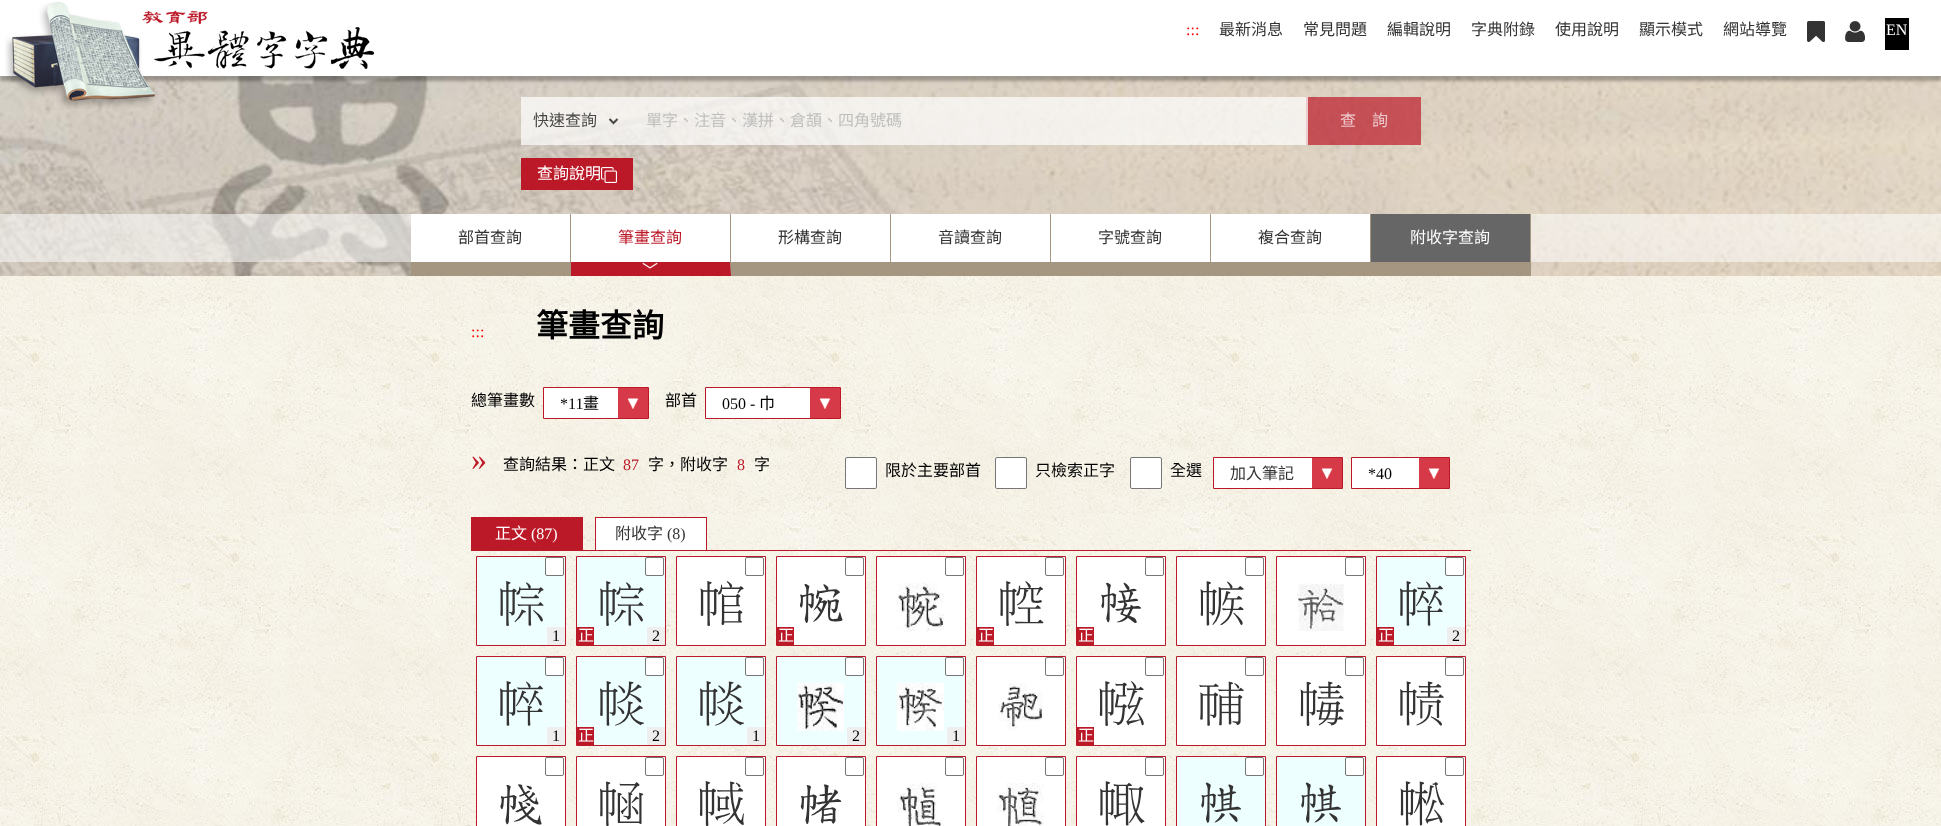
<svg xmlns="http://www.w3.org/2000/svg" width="1941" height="826">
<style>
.a{font:16px Liberation Serif;fill:#f00}
.b{font:16px Noto Sans CJK TC;fill:#333}
.c{font:16px Liberation Serif;fill:#fff}
.d{font:16px Noto Sans CJK TC;fill:#494847}
.e{font:16px Noto Sans CJK TC;fill:#bfbfbd}
.f{font:16px Noto Sans CJK TC;fill:#edcacc}
.g{font:16px Noto Sans CJK TC;fill:#fff}
.h{font:16px Noto Sans CJK TC;fill:#bc1928}
.i{font:bold 32px Noto Sans CJK TC;fill:#000}
.j{font:16px Noto Sans CJK TC;fill:#000}
.k{font:16px Liberation Serif;fill:#000}
.l{font:32px Liberation Serif;fill:#bc1928}
.m{font:16px Liberation Serif;fill:#bc1928}
.n{font:16px Liberation Serif;fill:#333}
.o{font:48px 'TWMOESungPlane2';fill:#333}
.p{font:48px 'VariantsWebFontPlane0';fill:#333}
</style>
<rect width="100%" height="100%" fill="#fff"/>
<image href="1.png" x="0" y="276" width="1941" height="550"/>
<image href="5.png" x="0" y="76" width="1941" height="200"/>
<path fill="#00000045" filter="blur(1.5px)" d="M0 5h1941v76H0z"/>
<path fill="#fff" d="M0 2h1941v74H0z"/>
<image href="2.png" x="5" y="2" width="369" height="107"/>
<image href="3.png" x="1807" y="21" width="18" height="21"/>
<image href="4.png" x="1845" y="21" width="20" height="21"/>
<path fill="#000" d="M1885 18h24v32H1885z"/>
<path fill="#ffffffb3" d="M521 97h101v48H521z"/>
<path fill="none" stroke="#000000b3" stroke-width="2" d="M609.5 119l4 4l4-4"/>
<path fill="#ffffffb3" d="M622 97h684v48H622z"/>
<path fill="#bc1928b3" d="M1306 97h115v48H1306z"/>
<path fill="#ffffffb3" d="M1306 97h2v48H1306z"/>
<path fill="#bc1928" d="M521 158h112v32H521z"/>
<image href="6.png" x="601" y="167" width="16" height="16"/>
<path fill="#ffffff87" d="M0 214h1941v48H0z"/>
<path fill="#fff" d="M411 214h159v48H411z"/>
<path fill="#a59682" d="M570 214h1v48H570z"/>
<path fill="#a59682" d="M411 262h160v14H411z"/>
<path fill="#fff" d="M571 214h159v48H571z"/>
<path fill="#a59682" d="M731 214v62l-1-14v-48z"/>
<path fill="#bc1928" d="M731 276h-160v-14h159z"/>
<path fill="#fff" d="M731 214h159v48H731z"/>
<path fill="#a59682" d="M890 214h1v48H890z"/>
<path fill="#a59682" d="M731 262h800v14H731z"/>
<path fill="#fff" d="M891 214h159v48H891z"/>
<path fill="#a59682" d="M1050 214h1v48H1050z"/>
<path fill="#fff" d="M1051 214h159v48H1051z"/>
<path fill="#a59682" d="M1210 214h1v48H1210z"/>
<path fill="#fff" d="M1211 214h159v48H1211z"/>
<path fill="#a59682" d="M1370 214h1v48H1370z"/>
<path fill="#666" d="M1371 214h159v48H1371z"/>
<path fill="#a59682" d="M1530 214h1v48H1530z"/>
<path fill="#fff" d="M544 388h74v30H544z"/>
<image href="7.png" x="618" y="388" width="30" height="30"/>
<path fill="none" stroke="#bc1928" d="M543.5 387.5h105v31H543.5z"/>
<path fill="#fff" d="M706 388h104v30H706z"/>
<image href="7.png" x="810" y="388" width="30" height="30"/>
<path fill="none" stroke="#bc1928" d="M705.5 387.5h135v31H705.5z"/>
<rect fill="#fff" stroke="#767676" x="845.5" y="457.5" width="31" height="31" rx="1.5"/>
<rect fill="#fff" stroke="#767676" x="995.5" y="457.5" width="31" height="31" rx="1.5"/>
<rect fill="#fff" stroke="#767676" x="1130.5" y="457.5" width="31" height="31" rx="1.5"/>
<path fill="#fff" d="M1214 458h98v30H1214z"/>
<image href="7.png" x="1312" y="458" width="30" height="30"/>
<path fill="none" stroke="#bc1928" d="M1213.5 457.5h129v31H1213.5z"/>
<path fill="#fff" d="M1352 458h67v30H1352z"/>
<image href="7.png" x="1419" y="458" width="30" height="30"/>
<path fill="none" stroke="#bc1928" d="M1351.5 457.5h98v31H1351.5z"/>
<path fill="#bc1928" d="M471 550h1000v1H471z"/>
<path fill="#bc1928" d="M471 517h112v33H471z"/>
<path fill="#fff" d="M596 518h110v32H596z"/>
<path fill="#bc1928" d="M595 517h112v1H595z"/>
<path fill="#bc1928" d="M706 517h1v33H706z"/>
<path fill="#bc1928" d="M595 517h1v33H595z"/>
<path fill="#eff" stroke="#bc1928" d="M476.5 556.5h89v89H476.5z"/>
<rect fill="#fff" stroke="#767676" x="545.5" y="557.5" width="18" height="18" rx="1.5"/>
<path fill="#eee" d="M547 627h18v18H547z"/>
<path fill="#eff" stroke="#bc1928" d="M576.5 556.5h89v89H576.5z"/>
<rect fill="#fff" stroke="#767676" x="645.5" y="557.5" width="18" height="18" rx="1.5"/>
<path fill="#bc1928" d="M577 627h17v18H577z"/>
<path fill="#eee" d="M647 627h18v18H647z"/>
<path fill="#fff" stroke="#bc1928" d="M676.5 556.5h89v89H676.5z"/>
<rect fill="none" stroke="#767676" x="745.5" y="557.5" width="18" height="18" rx="1.5"/>
<path fill="#fff" stroke="#bc1928" d="M776.5 556.5h89v89H776.5z"/>
<rect fill="none" stroke="#767676" x="845.5" y="557.5" width="18" height="18" rx="1.5"/>
<path fill="#bc1928" d="M777 627h17v18H777z"/>
<path fill="#fff" stroke="#bc1928" d="M876.5 556.5h89v89H876.5z"/>
<rect fill="none" stroke="#767676" x="945.5" y="557.5" width="18" height="18" rx="1.5"/>
<image href="8.png" x="897" y="583" width="47" height="48"/>
<path fill="#fff" stroke="#bc1928" d="M976.5 556.5h89v89H976.5z"/>
<rect fill="none" stroke="#767676" x="1045.5" y="557.5" width="18" height="18" rx="1.5"/>
<path fill="#bc1928" d="M977 627h17v18H977z"/>
<path fill="#fff" stroke="#bc1928" d="M1076.5 556.5h89v89H1076.5z"/>
<rect fill="none" stroke="#767676" x="1145.5" y="557.5" width="18" height="18" rx="1.5"/>
<path fill="#bc1928" d="M1077 627h17v18H1077z"/>
<path fill="#fff" stroke="#bc1928" d="M1176.5 556.5h89v89H1176.5z"/>
<rect fill="none" stroke="#767676" x="1245.5" y="557.5" width="18" height="18" rx="1.5"/>
<path fill="#fff" stroke="#bc1928" d="M1276.5 556.5h89v89H1276.5z"/>
<rect fill="none" stroke="#767676" x="1345.5" y="557.5" width="18" height="18" rx="1.5"/>
<image href="9.png" x="1297" y="583" width="47" height="48"/>
<path fill="#eff" stroke="#bc1928" d="M1376.5 556.5h89v89H1376.5z"/>
<rect fill="#fff" stroke="#767676" x="1445.5" y="557.5" width="18" height="18" rx="1.5"/>
<path fill="#bc1928" d="M1377 627h17v18H1377z"/>
<path fill="#eee" d="M1447 627h18v18H1447z"/>
<path fill="#eff" stroke="#bc1928" d="M476.5 656.5h89v89H476.5z"/>
<rect fill="#fff" stroke="#767676" x="545.5" y="657.5" width="18" height="18" rx="1.5"/>
<path fill="#eee" d="M547 727h18v18H547z"/>
<path fill="#eff" stroke="#bc1928" d="M576.5 656.5h89v89H576.5z"/>
<rect fill="#fff" stroke="#767676" x="645.5" y="657.5" width="18" height="18" rx="1.5"/>
<path fill="#bc1928" d="M577 727h17v18H577z"/>
<path fill="#eee" d="M647 727h18v18H647z"/>
<path fill="#eff" stroke="#bc1928" d="M676.5 656.5h89v89H676.5z"/>
<rect fill="#fff" stroke="#767676" x="745.5" y="657.5" width="18" height="18" rx="1.5"/>
<path fill="#eee" d="M747 727h18v18H747z"/>
<path fill="#fff" stroke="#bc1928" d="M976.5 656.5h89v89H976.5z"/>
<rect fill="none" stroke="#767676" x="1045.5" y="657.5" width="18" height="18" rx="1.5"/>
<image href="10.png" x="998" y="683" width="45" height="48"/>
<path fill="#fff" stroke="#bc1928" d="M1076.5 656.5h89v89H1076.5z"/>
<rect fill="none" stroke="#767676" x="1145.5" y="657.5" width="18" height="18" rx="1.5"/>
<path fill="#bc1928" d="M1077 727h17v18H1077z"/>
<path fill="#fff" stroke="#bc1928" d="M1176.5 656.5h89v89H1176.5z"/>
<rect fill="none" stroke="#767676" x="1245.5" y="657.5" width="18" height="18" rx="1.5"/>
<image href="11.png" x="1199" y="681" width="45" height="45"/>
<path fill="#fff" stroke="#bc1928" d="M1276.5 656.5h89v89H1276.5z"/>
<rect fill="none" stroke="#767676" x="1345.5" y="657.5" width="18" height="18" rx="1.5"/>
<path fill="#fff" stroke="#bc1928" d="M1376.5 656.5h89v89H1376.5z"/>
<rect fill="none" stroke="#767676" x="1445.5" y="657.5" width="18" height="18" rx="1.5"/>
<image href="12.png" x="1400" y="681" width="44" height="45"/>
<path fill="#eff" stroke="#bc1928" d="M776.5 656.5h89v89H776.5z"/>
<rect fill="#fff" stroke="#767676" x="845.5" y="657.5" width="18" height="18" rx="1.5"/>
<image href="13.png" x="797" y="683" width="47" height="48"/>
<path fill="#eee" d="M847 727h18v18H847z"/>
<path fill="#eff" stroke="#bc1928" d="M876.5 656.5h89v89H876.5z"/>
<rect fill="#fff" stroke="#767676" x="945.5" y="657.5" width="18" height="18" rx="1.5"/>
<image href="14.png" x="897" y="683" width="47" height="48"/>
<path fill="#eee" d="M947 727h18v18H947z"/>
<path fill="#fff" stroke="#bc1928" d="M476.5 756.5h89v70H476.5z"/>
<rect fill="none" stroke="#767676" x="545.5" y="757.5" width="18" height="18" rx="1.5"/>
<path fill="#fff" stroke="#bc1928" d="M576.5 756.5h89v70H576.5z"/>
<rect fill="none" stroke="#767676" x="645.5" y="757.5" width="18" height="18" rx="1.5"/>
<path fill="#fff" stroke="#bc1928" d="M676.5 756.5h89v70H676.5z"/>
<rect fill="none" stroke="#767676" x="745.5" y="757.5" width="18" height="18" rx="1.5"/>
<path fill="#fff" stroke="#bc1928" d="M776.5 756.5h89v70H776.5z"/>
<rect fill="none" stroke="#767676" x="845.5" y="757.5" width="18" height="18" rx="1.5"/>
<path fill="#fff" stroke="#bc1928" d="M876.5 756.5h89v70H876.5z"/>
<rect fill="none" stroke="#767676" x="945.5" y="757.5" width="18" height="18" rx="1.5"/>
<image href="15.png" x="897" y="783" width="47" height="43"/>
<path fill="#fff" stroke="#bc1928" d="M976.5 756.5h89v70H976.5z"/>
<rect fill="none" stroke="#767676" x="1045.5" y="757.5" width="18" height="18" rx="1.5"/>
<image href="16.png" x="997" y="783" width="47" height="43"/>
<path fill="#fff" stroke="#bc1928" d="M1076.5 756.5h89v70H1076.5z"/>
<rect fill="none" stroke="#767676" x="1145.5" y="757.5" width="18" height="18" rx="1.5"/>
<path fill="#eff" stroke="#bc1928" d="M1176.5 756.5h89v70H1176.5z"/>
<rect fill="#fff" stroke="#767676" x="1245.5" y="757.5" width="18" height="18" rx="1.5"/>
<path fill="#eff" stroke="#bc1928" d="M1276.5 756.5h89v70H1276.5z"/>
<rect fill="#fff" stroke="#767676" x="1345.5" y="757.5" width="18" height="18" rx="1.5"/>
<path fill="#fff" stroke="#bc1928" d="M1376.5 756.5h89v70H1376.5z"/>
<rect fill="none" stroke="#767676" x="1445.5" y="757.5" width="18" height="18" rx="1.5"/>
<text class="a" x="1186" y="35">:::</text>
<text class="b" x="1219" y="35">最新消息</text>
<text class="b" x="1303" y="35">常見問題</text>
<text class="b" x="1387" y="35">編輯說明</text>
<text class="b" x="1471" y="35">字典附錄</text>
<text class="b" x="1555" y="35">使用說明</text>
<text class="b" x="1639" y="35">顯示模式</text>
<text class="b" x="1723" y="35">網站導覽</text>
<text class="c" x="1886" y="35">EN</text>
<text class="d" x="533" y="126">快速查詢</text>
<text class="e" x="646" y="126">單字、注音、漢拼、倉頡、四角號碼</text>
<text class="f" x="1340" y="126">查　詢</text>
<text class="g" x="537" y="179">查詢說明</text>
<text class="b" x="458" y="243">部首查詢</text>
<text class="h" x="618" y="243">筆畫查詢</text>
<text class="g" x="642" y="276">﹀</text>
<text class="b" x="778" y="243">形構查詢</text>
<text class="b" x="938" y="243">音讀查詢</text>
<text class="b" x="1098" y="243">字號查詢</text>
<text class="b" x="1258" y="243">複合查詢</text>
<text class="g" x="1410" y="243">附收字查詢</text>
<text class="a" x="471" y="337">:::</text>
<text class="i" x="536" y="337">筆畫查詢</text>
<text class="j" x="471" y="406">總筆畫數</text>
<text class="k" x="560" y="409">*11</text>
<text class="j" x="583" y="409">畫</text>
<text class="j" x="665" y="406">部首</text>
<text class="k" x="722" y="409">050 -</text>
<text class="j" x="759" y="409">巾</text>
<text class="l" x="471" y="470">»</text>
<text class="j" x="503" y="470">查詢結果：正文</text>
<text class="m" x="623" y="470">87</text>
<text class="j" x="648" y="470">字，附收字</text>
<text class="m" x="737" y="470">8</text>
<text class="j" x="754" y="470">字</text>
<text class="j" x="885" y="476">限於主要部首</text>
<text class="j" x="1035" y="476">只檢索正字</text>
<text class="j" x="1170" y="476">全選</text>
<text class="b" x="1230" y="479">加入筆記</text>
<text class="k" x="1368" y="479">*40</text>
<text class="g" x="495" y="539">正文</text>
<text class="c" x="531" y="539">(87)</text>
<text class="b" x="615" y="539">附收字</text>
<text class="n" x="667" y="539">(8)</text>
<text class="o" x="497" y="618">𢃏</text>
<text class="k" x="552" y="641">1</text>
<text class="o" x="597" y="618">𢃏</text>
<text class="g" x="578" y="641">正</text>
<text class="k" x="652" y="641">2</text>
<text class="o" x="697" y="618">𢃙</text>
<text class="p" x="797" y="618">帵</text>
<text class="g" x="778" y="641">正</text>
<text class="o" x="997" y="618">𢃐</text>
<text class="g" x="978" y="641">正</text>
<text class="p" x="1097" y="618">帹</text>
<text class="g" x="1078" y="641">正</text>
<text class="o" x="1197" y="618">𢃨</text>
<text class="o" x="1397" y="618">𢃒</text>
<text class="g" x="1378" y="641">正</text>
<text class="k" x="1452" y="641">2</text>
<text class="o" x="497" y="718">𢃒</text>
<text class="k" x="552" y="741">1</text>
<text class="o" x="597" y="718">𢃔</text>
<text class="g" x="578" y="741">正</text>
<text class="k" x="652" y="741">2</text>
<text class="o" x="697" y="718">𢃔</text>
<text class="k" x="752" y="741">1</text>
<text class="p" x="1097" y="718">㡉</text>
<text class="g" x="1078" y="741">正</text>
<text class="o" x="1297" y="718">𢃶</text>
<text class="k" x="852" y="741">2</text>
<text class="k" x="952" y="741">1</text>
<text class="p" x="497" y="818">帴</text>
<text class="o" x="597" y="818">𢃗</text>
<text class="o" x="697" y="818">𢃎</text>
<text class="p" x="797" y="818">帾</text>
<text class="o" x="1097" y="818">𢃣</text>
<text class="p" x="1197" y="818">帺</text>
<text class="p" x="1297" y="818">帺</text>
<text class="o" x="1397" y="818">𢃓</text>
</svg>
